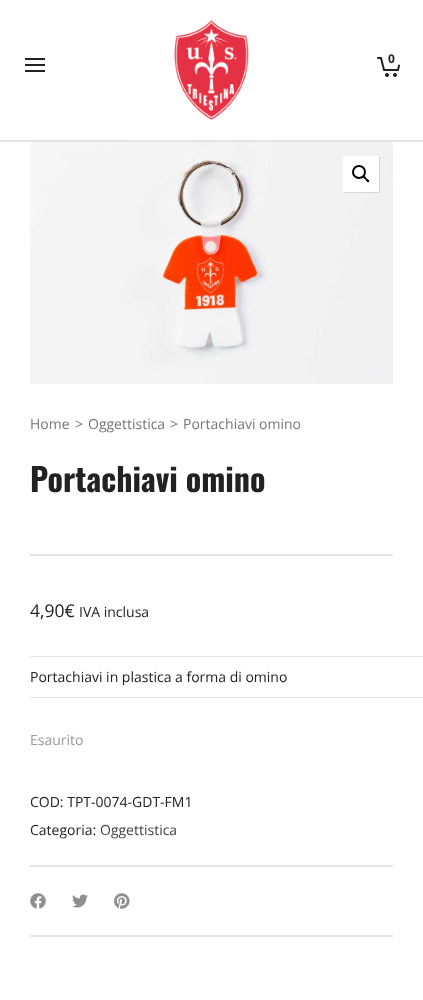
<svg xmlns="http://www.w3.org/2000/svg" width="423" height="1000">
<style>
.a{font:bold 12px Open Sans;fill:#222}
.b{font:14px Open Sans;fill:#767676}
.c{font:bold 32px Oswald;fill:#222}
.d{font:17.5px Open Sans;fill:#222}
.e{font:14px Open Sans;fill:#222}
.f{font:14px Open Sans;fill:#999}
.g{font:14px Open Sans;fill:#444}
</style>
<rect width="100%" height="100%" fill="#fff"/>
<path fill="#e4e4e4" d="M0 140h423v2H0z"/>
<path fill="#222" d="M25 64h20v2H25z"/>
<path fill="#222" d="M25 58h20v2H25z"/>
<path fill="#222" d="M25 70h20v2H25z"/>
<image href="1.png" x="174" y="20" width="75" height="100"/>
<image href="2.png" x="377" y="57" width="23" height="20"/>
<image href="3.png" x="30" y="142" width="363" height="242"/>
<path fill="#0000001a" filter="blur(0.5px)" d="M344 157h36v36H344z"/>
<path fill="#fff" d="M343 156h36v36H343z"/>
<circle fill="none" stroke="#000" stroke-width="2" cx="359" cy="172" r="6"/>
<path fill="#000" d="M363 176c1.5-1 3 1.5 3.5 2.5c1 .5 3.5 2 2.5 3.5c-1.5 1-3-1.5-3.5-2.5c-1-.5-3.5-2-2.5-3.5z"/>
<path fill="#e4e4e4" d="M30 554h363v2H30z"/>
<path fill="#e4e4e4" d="M30 697h393v1H30z"/>
<path fill="#e4e4e4" d="M30 656h393v1H30z"/>
<path fill="#e4e4e4" d="M30 865h363v2H30z"/>
<path fill="#e4e4e4" d="M30 935h363v2H30z"/>
<image href="4.png" x="30" y="893" width="16" height="16"/>
<image href="5.png" x="72" y="894" width="16" height="14"/>
<image href="6.png" x="114" y="893" width="16" height="16"/>
<text class="a" x="388" y="63">0</text>
<text class="b" x="30" y="429">Home</text>
<text class="b" x="75" y="429">&gt;</text>
<text class="b" x="88" y="429">Oggettistica</text>
<text class="b" x="170" y="429">&gt;</text>
<text class="b" x="183" y="429">Portachiavi omino</text>
<text class="c" x="30" y="492">Portachiavi omino</text>
<text class="d" x="30" y="617">4,90€</text>
<text class="e" x="79" y="617">IVA inclusa</text>
<text class="e" x="30" y="682">Portachiavi in plastica a forma di omino</text>
<text class="f" x="30" y="745">Esaurito</text>
<text class="e" x="30" y="807">COD: TPT-0074-GDT-FM1</text>
<text class="e" x="30" y="835">Categoria:</text>
<text class="g" x="100" y="835">Oggettistica</text>
</svg>
